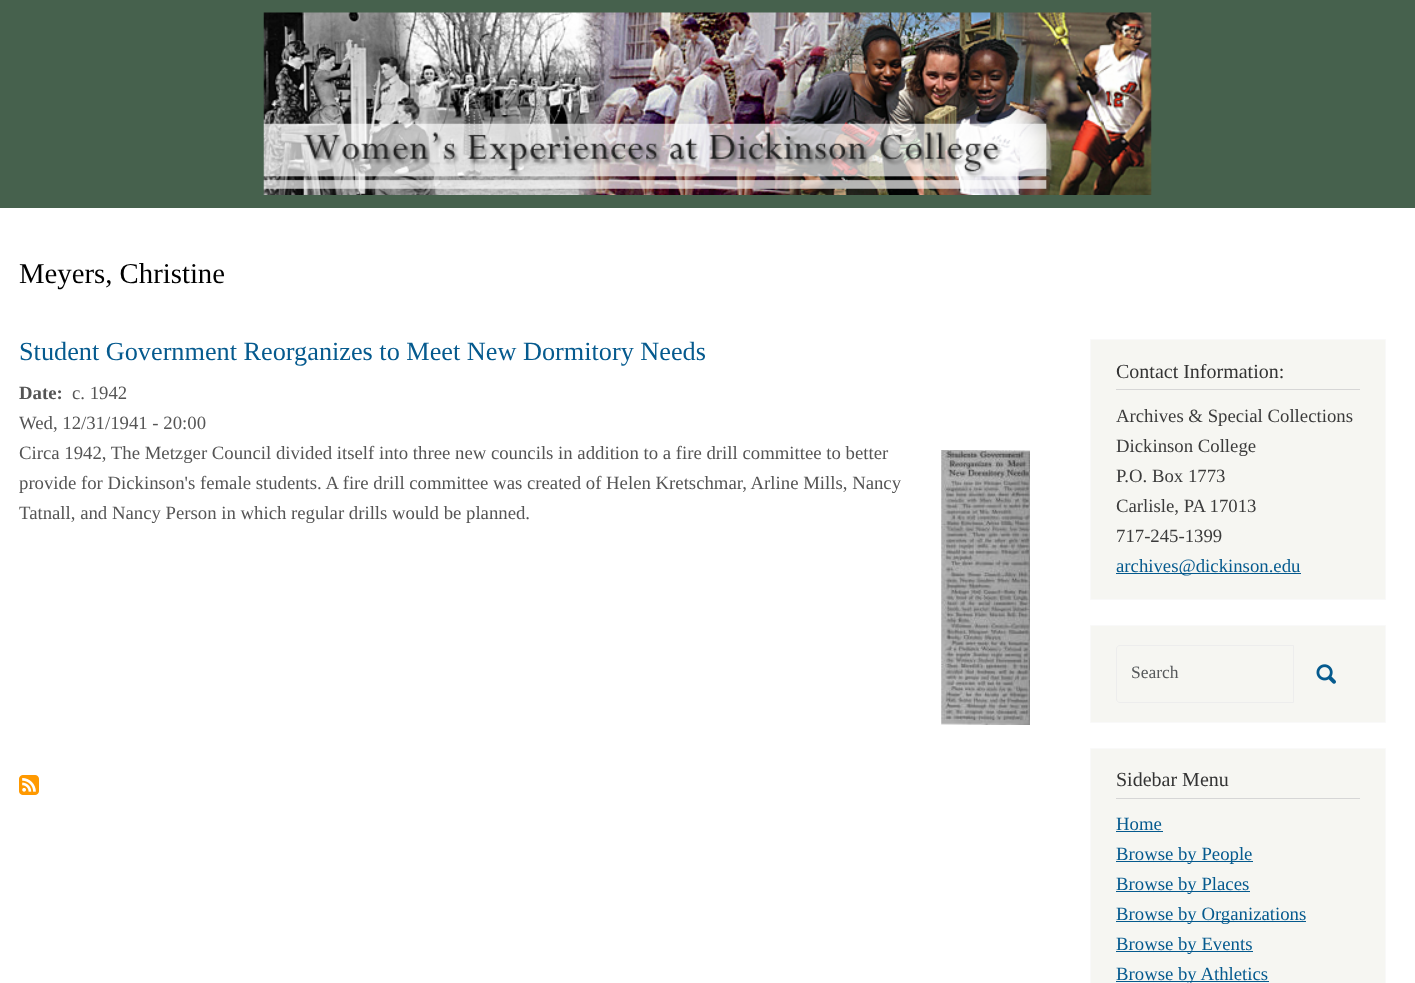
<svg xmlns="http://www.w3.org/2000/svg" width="1415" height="983">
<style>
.a{font:28.75px Liberation Serif;fill:#000}
.b{font:26.25px Liberation Serif;fill:#055a8e}
.c{font:bold 18.75px Liberation Serif;fill:#555}
.d{font:18.75px Liberation Serif;fill:#555}
.e{font:20px Liberation Serif;fill:#333}
.f{font:18.75px Liberation Serif;fill:#3b3b3b}
.g{font:18.75px Liberation Serif;fill:#055a8e}
.h{font:17.5px Liberation Serif;fill:#56595b}
</style>
<rect width="100%" height="100%" fill="#fff"/>
<path fill="#46614d" d="M0 0h1415v208H0z"/>
<image href="1.png" x="263" y="12" width="889" height="183"/>
<image href="2.png" x="941" y="450" width="89" height="275"/>
<image href="3.png" x="19" y="775" width="20" height="20"/>
<path fill="#f6f6f2" stroke="#f9f9f9" d="M1090.5 339.5h295v260H1090.5z"/>
<path fill="#d6d6d6" d="M1116 389h244v1H1116z"/>
<path fill="#055a8e" d="M1116 573h185v1H1116z"/>
<path fill="#f6f6f2" stroke="#f9f9f9" d="M1090.5 625.5h295v97H1090.5z"/>
<path fill="none" stroke="#ededed" d="M1120 645.5h173.5v57h-173.5c-2 0-3.5-1.5-3.5-3.5v-50c0-2 1.5-3.5 3.5-3.5z"/>
<image href="4.png" x="1316" y="664" width="20" height="20"/>
<path fill="#f6f6f2" stroke="#f9f9f9" d="M1090.5 748.5h295v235H1090.5z"/>
<path fill="#d6d6d6" d="M1116 798h244v1H1116z"/>
<path fill="#055a8e" d="M1116 831h47v1H1116z"/>
<path fill="#055a8e" d="M1116 861h137v1H1116z"/>
<path fill="#055a8e" d="M1116 891h134v1H1116z"/>
<path fill="#055a8e" d="M1116 921h190v1H1116z"/>
<path fill="#055a8e" d="M1116 951h137v1H1116z"/>
<path fill="#055a8e" d="M1116 981h153v1H1116z"/>
<text class="a" x="19" y="283">Meyers, Christine</text>
<text class="b" x="19" y="360">Student Government Reorganizes to Meet New Dormitory Needs</text>
<text class="c" x="19" y="399">Date:</text>
<text class="d" x="72" y="399">c. 1942</text>
<text class="d" x="19" y="429">Wed, 12/31/1941 - 20:00</text>
<text class="d" x="19" y="459">Circa 1942, The Metzger Council divided itself into three new councils in addition to a fire drill committee to better</text>
<text class="d" x="19" y="489">provide for Dickinson's female students. A fire drill committee was created of Helen Kretschmar, Arline Mills, Nancy</text>
<text class="d" x="19" y="519">Tatnall, and Nancy Person in which regular drills would be planned.</text>
<text class="e" x="1116" y="378">Contact Information:</text>
<text class="f" x="1116" y="422">Archives &amp; Special Collections</text>
<text class="f" x="1116" y="452">Dickinson College</text>
<text class="f" x="1116" y="482">P.O. Box 1773</text>
<text class="f" x="1116" y="512">Carlisle, PA 17013</text>
<text class="f" x="1116" y="542">717-245-1399</text>
<text class="g" x="1116" y="572">archives@dickinson.edu</text>
<text class="h" x="1131" y="678">Search</text>
<text class="e" x="1116" y="786">Sidebar Menu</text>
<text class="g" x="1116" y="830">Home</text>
<text class="g" x="1116" y="860">Browse by People</text>
<text class="g" x="1116" y="890">Browse by Places</text>
<text class="g" x="1116" y="920">Browse by Organizations</text>
<text class="g" x="1116" y="950">Browse by Events</text>
<text class="g" x="1116" y="980">Browse by Athletics</text>
</svg>
